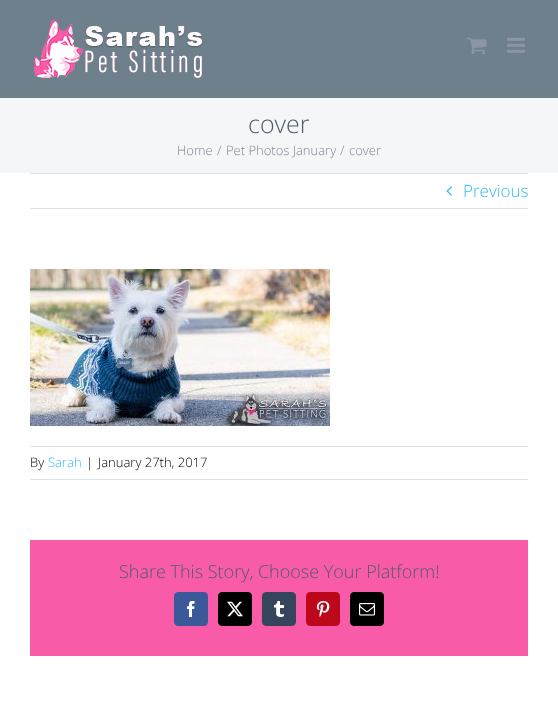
<svg xmlns="http://www.w3.org/2000/svg" width="558" height="727">
<style>
.a{font:300 25px Open Sans;fill:#515b69}
.b{font:300 13px Open Sans;fill:#7f8795}
.c{font:300 17px Open Sans;fill:#35baf2}
.d{font:300 13px Open Sans;fill:#000}
.e{font:300 13px Open Sans;fill:#35baf2}
.f{font:300 18px Open Sans;fill:#515b69}
</style>
<rect width="100%" height="100%" fill="#fff"/>
<path fill="#6d808c" d="M0 0h558v98H0z"/>
<image href="1.png" x="34" y="20" width="169" height="58"/>
<image href="2.png" x="467" y="37" width="20" height="18"/>
<image href="3.png" x="507" y="37" width="18" height="16"/>
<path fill="#f4f6f8" d="M0 98h558v75H0z"/>
<path fill="#dbe2ea" d="M30 173h498v1H30z"/>
<path fill="#dbe2ea" d="M30 208h498v1H30z"/>
<image href="4.png" x="446" y="186" width="6" height="10"/>
<image href="5.png" x="30" y="269" width="300" height="157"/>
<path fill="#dbe2ea" d="M30 446h498v1H30z"/>
<path fill="#dbe2ea" d="M30 479h498v1H30z"/>
<path fill="#f85ca8" d="M30 540h498v116H30z"/>
<rect fill="#3b5998" stroke="#3b5998" x="174.5" y="592.5" width="33" height="33" rx="3.5"/>
<image href="6.png" x="187" y="601" width="8" height="16"/>
<rect fill="#000" stroke="#000" x="218.5" y="592.5" width="33" height="33" rx="3.5"/>
<image href="7.png" x="227" y="601" width="16" height="16"/>
<rect fill="#35465c" stroke="#35465c" x="262.5" y="592.5" width="33" height="33" rx="3.5"/>
<image href="8.png" x="274" y="601" width="10" height="16"/>
<rect fill="#bd081c" stroke="#bd081c" x="306.5" y="592.5" width="33" height="33" rx="3.5"/>
<image href="9.png" x="316" y="601" width="14" height="16"/>
<rect fill="#000" stroke="#000" x="350.5" y="592.5" width="33" height="33" rx="3.5"/>
<image href="10.png" x="359" y="603" width="16" height="13"/>
<text class="a" x="248" y="133">cover</text>
<text class="b" x="177" y="155">Home</text>
<text class="b" x="217" y="155">/</text>
<text class="b" x="226" y="155">Pet Photos January</text>
<text class="b" x="340" y="155">/</text>
<text class="b" x="349" y="155">cover</text>
<text class="c" x="463" y="197">Previous</text>
<text class="d" x="30" y="467">By</text>
<text class="e" x="48" y="467">Sarah</text>
<text class="d" x="86" y="467">|</text>
<text class="d" x="98" y="467">January 27th, 2017</text>
<text class="f" x="119" y="578">Share This Story, Choose Your Platform!</text>
</svg>
